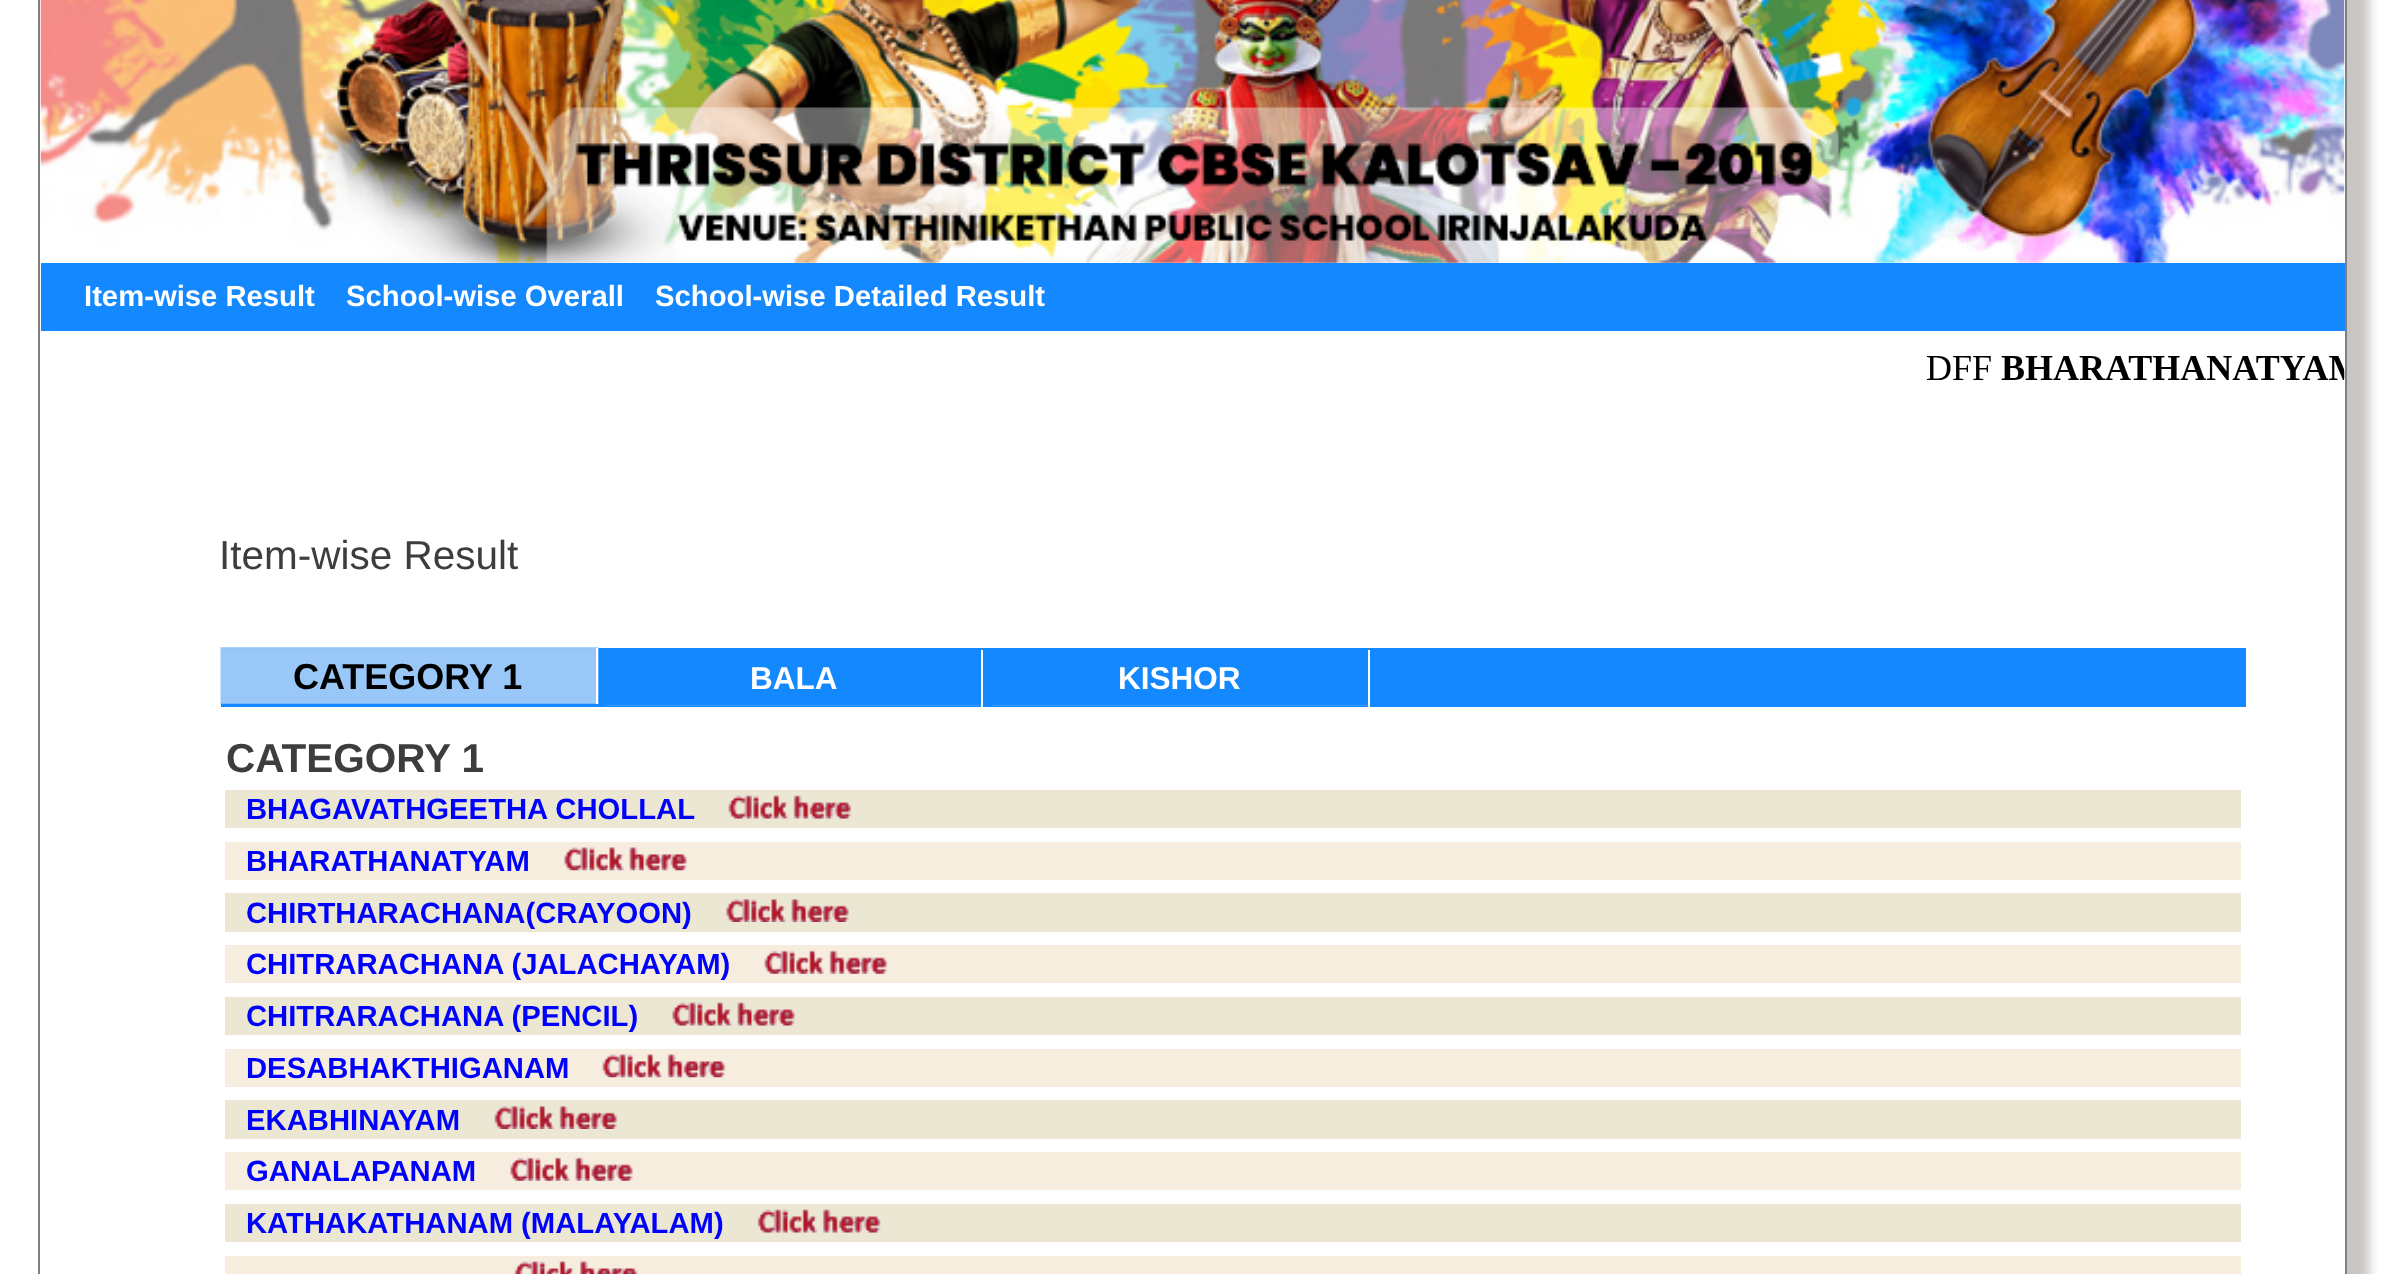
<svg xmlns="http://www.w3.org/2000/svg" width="2382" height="1274">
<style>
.a{font:bold 29.25px Liberation Sans;fill:#fff}
.b{font:40.5px Liberation Sans;fill:#3d3d3d}
.c{font:bold 36px Liberation Sans;fill:#000}
.d{font:bold 31.5px Liberation Sans;fill:#fff}
.e{font:bold 40.5px Liberation Sans;fill:#3d3d3d}
.f{font:bold 29.25px Liberation Sans;fill:#00f}
</style>
<rect width="100%" height="100%" fill="#fff"/>
<rect fill="#c8c5c2" filter="blur(5.5px)" x="61" y="-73" width="2308" height="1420" rx="56"/>
<path fill="#fff" d="M52 0h2293v1274H52z"/>
<path fill="none" stroke="#808080" stroke-width="2" d="M39 -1h2307v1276H39z"/>
<image href="1.png" x="40" y="0" width="2305" height="263"/>
<path fill="#1488ff" d="M41 263h2304v68H41z"/>
<image href="2.png" x="1927" y="356" width="418" height="24"/>
<path fill="#1488ff" d="M221 648h2025v59H221z"/>
<image href="3.png" x="220" y="647" width="379" height="57"/>
<path fill="#fff" d="M596 648h2v56H596z"/>
<image href="4.png" x="605" y="705" width="379" height="1"/>
<path fill="#fff" d="M981 650h2v57H981z"/>
<image href="4.png" x="992" y="705" width="379" height="1"/>
<path fill="#fff" d="M1368 650h2v57H1368z"/>
<path fill="#ece7d2" d="M225 790h2016v38H225z"/>
<image href="5.png" x="728" y="795" width="124" height="24"/>
<path fill="#f7eddf" d="M225 842h2016v38H225z"/>
<image href="6.png" x="564" y="847" width="123" height="24"/>
<path fill="#ece7d2" d="M225 893h2016v39H225z"/>
<image href="7.png" x="726" y="899" width="123" height="23"/>
<path fill="#f7eddf" d="M225 945h2016v38H225z"/>
<image href="8.png" x="764" y="950" width="124" height="24"/>
<path fill="#ece7d2" d="M225 997h2016v38H225z"/>
<image href="9.png" x="672" y="1002" width="123" height="24"/>
<path fill="#f7eddf" d="M225 1049h2016v38H225z"/>
<image href="10.png" x="602" y="1054" width="124" height="24"/>
<path fill="#ece7d2" d="M225 1100h2016v39H225z"/>
<image href="11.png" x="494" y="1106" width="124" height="23"/>
<path fill="#f7eddf" d="M225 1152h2016v38H225z"/>
<image href="12.png" x="510" y="1157" width="123" height="24"/>
<path fill="#ece7d2" d="M225 1204h2016v38H225z"/>
<image href="13.png" x="757" y="1209" width="124" height="24"/>
<path fill="#f7eddf" d="M225 1256h2016v18H225z"/>
<image href="14.png" x="514" y="1261" width="124" height="13"/>
<text class="a" x="84" y="306">Item-wise Result</text>
<text class="a" x="346" y="306">School-wise Overall</text>
<text class="a" x="655" y="306">School-wise Detailed Result</text>
<text class="b" x="219" y="569">Item-wise Result</text>
<text class="c" x="293" y="689">CATEGORY 1</text>
<text class="d" x="750" y="689">BALA</text>
<text class="d" x="1118" y="689">KISHOR</text>
<text class="e" x="226" y="772">CATEGORY 1</text>
<text class="f" x="246" y="819">BHAGAVATHGEETHA CHOLLAL</text>
<text class="f" x="246" y="871">BHARATHANATYAM</text>
<text class="f" x="246" y="923">CHIRTHARACHANA(CRAYOON)</text>
<text class="f" x="246" y="974">CHITRARACHANA (JALACHAYAM)</text>
<text class="f" x="246" y="1026">CHITRARACHANA (PENCIL)</text>
<text class="f" x="246" y="1078">DESABHAKTHIGANAM</text>
<text class="f" x="246" y="1130">EKABHINAYAM</text>
<text class="f" x="246" y="1181">GANALAPANAM</text>
<text class="f" x="246" y="1233">KATHAKATHANAM (MALAYALAM)</text>
</svg>
